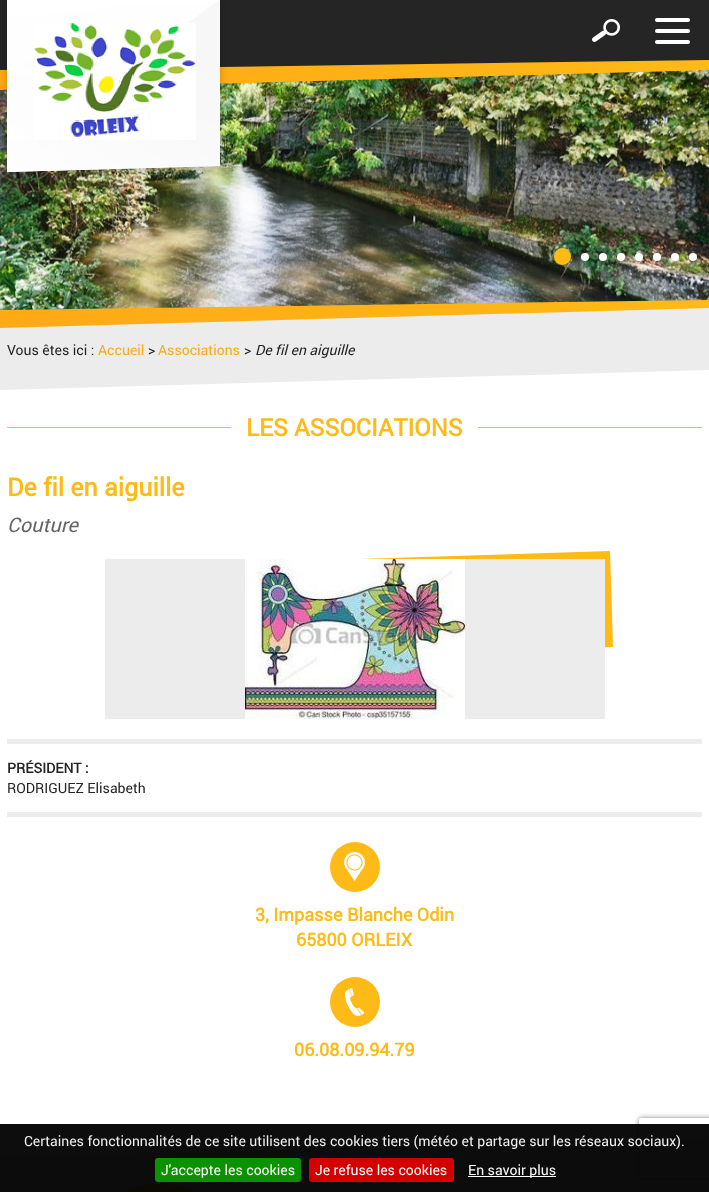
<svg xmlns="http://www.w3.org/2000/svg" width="709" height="1192">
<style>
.a{font:14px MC;fill:#252525}
.b{font:14px MC;fill:#fea916}
.c{font:italic 14px MC;fill:#252525}
.d{font:bold 24px MC;fill:#feba16}
.e{font:bold 25px MC;fill:#feba16}
.f{font:italic 20px MC;fill:#656565}
.g{font:bold 14px MC;fill:#252525}
.h{font:bold 18px MC;fill:#feba16}
.i{font:14px MC;fill:#eee}
.j{font:14px MC;fill:#fff}
</style>
<defs>
<linearGradient id="g1" gradientUnits="userSpaceOnUse" x1="0" y1="-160" x2="709" y2="-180"><stop offset="0" stop-color="#fea916"/><stop offset="1" stop-color="#feba16"/></linearGradient>
<linearGradient id="g2" gradientUnits="userSpaceOnUse" x1="0" y1="363" x2="709" y2="353"><stop offset="0" stop-color="#fea916"/><stop offset="1" stop-color="#feba16"/></linearGradient>
<clipPath id="clip1"><path d="M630 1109h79v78h-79zm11 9h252c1 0 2 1 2 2v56c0 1-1 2-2 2h-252c-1 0-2-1-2-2v-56c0-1 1-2 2-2z" clip-rule="evenodd"/></clipPath>
</defs>
<rect width="100%" height="100%" fill="#fff"/>
<image href="4.png" x="0" y="70" width="709" height="240"/>
<path fill="url(#g1)" d="M0-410l709-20v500l-709 20z"/>
<path fill="#252525" d="M0-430l709-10v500l-709 10z"/>
<path fill="#00000033" filter="blur(4px)" d="M7 -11h213v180H7z"/>
<path fill="#fff" d="M7-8l213-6v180l-213 6z"/>
<image href="1.png" x="8" y="0" width="212" height="172"/>
<image href="2.png" x="34" y="23" width="162" height="117"/>
<rect fill="#fff" x="655" y="18" width="35" height="4" rx="2"/>
<rect fill="#fff" x="655" y="29" width="35" height="4" rx="2"/>
<rect fill="#fff" x="655" y="40" width="35" height="4" rx="2"/>
<image href="3.png" x="592" y="19" width="28" height="23"/>
<circle fill="#feba16" cx="562.5" cy="256.5" r="8.5"/>
<circle fill="#fff" cx="585" cy="257" r="4"/>
<circle fill="#fff" cx="603" cy="257" r="4"/>
<circle fill="#fff" cx="621" cy="257" r="4"/>
<circle fill="#fff" cx="639" cy="257" r="4"/>
<circle fill="#fff" cx="657" cy="257" r="4"/>
<circle fill="#fff" cx="675" cy="257" r="4"/>
<circle fill="#fff" cx="693" cy="257" r="4"/>
<path fill="url(#g2)" d="M0 310l709-10v105l-709 10z"/>
<path fill="#ececec" d="M0 1137h709v55H0z"/>
<path fill="#ececec" d="M0 328l709-20v104l-709 20z"/>
<path fill="#fff" d="M0 390l709-20v105l-709 20z"/>
<path fill="#feba16" d="M7 427h695v1H7z"/>
<path fill="#fff" d="M231 427h247v1H231z"/>
<path fill="#feba16" d="M360 559l250-8l3 96l-250 8z"/>
<path fill="#ececec" d="M105 559h500v160H105z"/>
<image href="5.png" x="245" y="559" width="220" height="160"/>
<path fill="#ececec" d="M7 739h695v5H7z"/>
<path fill="#ececec" d="M7 812h695v5H7z"/>
<circle fill="#feba16" cx="355" cy="867" r="25"/>
<image href="6.png" x="344" y="852" width="21" height="29"/>
<circle fill="#feba16" cx="355" cy="1002" r="25"/>
<image href="7.png" x="345" y="988" width="19" height="28"/>
<path fill="#fff" d="M0 1052l709-20v105l-709 20z"/>
<rect fill="#feba16" x="105" y="1184" width="107" height="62" rx="53.5"/>
<g clip-path="url(#clip1)">
<rect fill="#808080" filter="blur(2.5px)" x="639" y="1118" width="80" height="60" rx="2"/>
</g>
<path fill="#000000f2" d="M0 1124h709v68H0z"/>
<rect fill="#0b9200" x="155" y="1158" width="146" height="24" rx="3"/>
<rect fill="#d40000" x="309" y="1158" width="145" height="24" rx="3"/>
<path fill="#fff" d="M468 1176h88v1H468z"/>
<text class="a" x="7" y="355">Vous êtes ici :</text>
<text class="b" x="98" y="355">Accueil</text>
<text class="a" x="148" y="355">&gt;</text>
<text class="b" x="158" y="355">Associations</text>
<text class="a" x="244" y="355">&gt;</text>
<text class="c" x="255" y="355">De fil en aiguille</text>
<text class="d" x="246" y="436">LES ASSOCIATIONS</text>
<text class="e" x="7" y="496">De fil en aiguille</text>
<text class="f" x="7" y="532">Couture</text>
<text class="g" x="7" y="773">PRÉSIDENT :</text>
<text class="a" x="7" y="793">RODRIGUEZ Elisabeth</text>
<text class="h" x="255" y="921">3, Impasse Blanche Odin</text>
<text class="h" x="296" y="946">65800 ORLEIX</text>
<text class="h" x="294" y="1056">06.08.09.94.79</text>
<text class="i" x="24" y="1146">Certaines fonctionnalités de ce site utilisent des cookies tiers (météo et partage sur les réseaux sociaux).</text>
<text class="j" x="161" y="1175">J'accepte les cookies</text>
<text class="j" x="315" y="1175">Je refuse les cookies</text>
<text class="j" x="468" y="1175">En savoir plus</text>
</svg>
